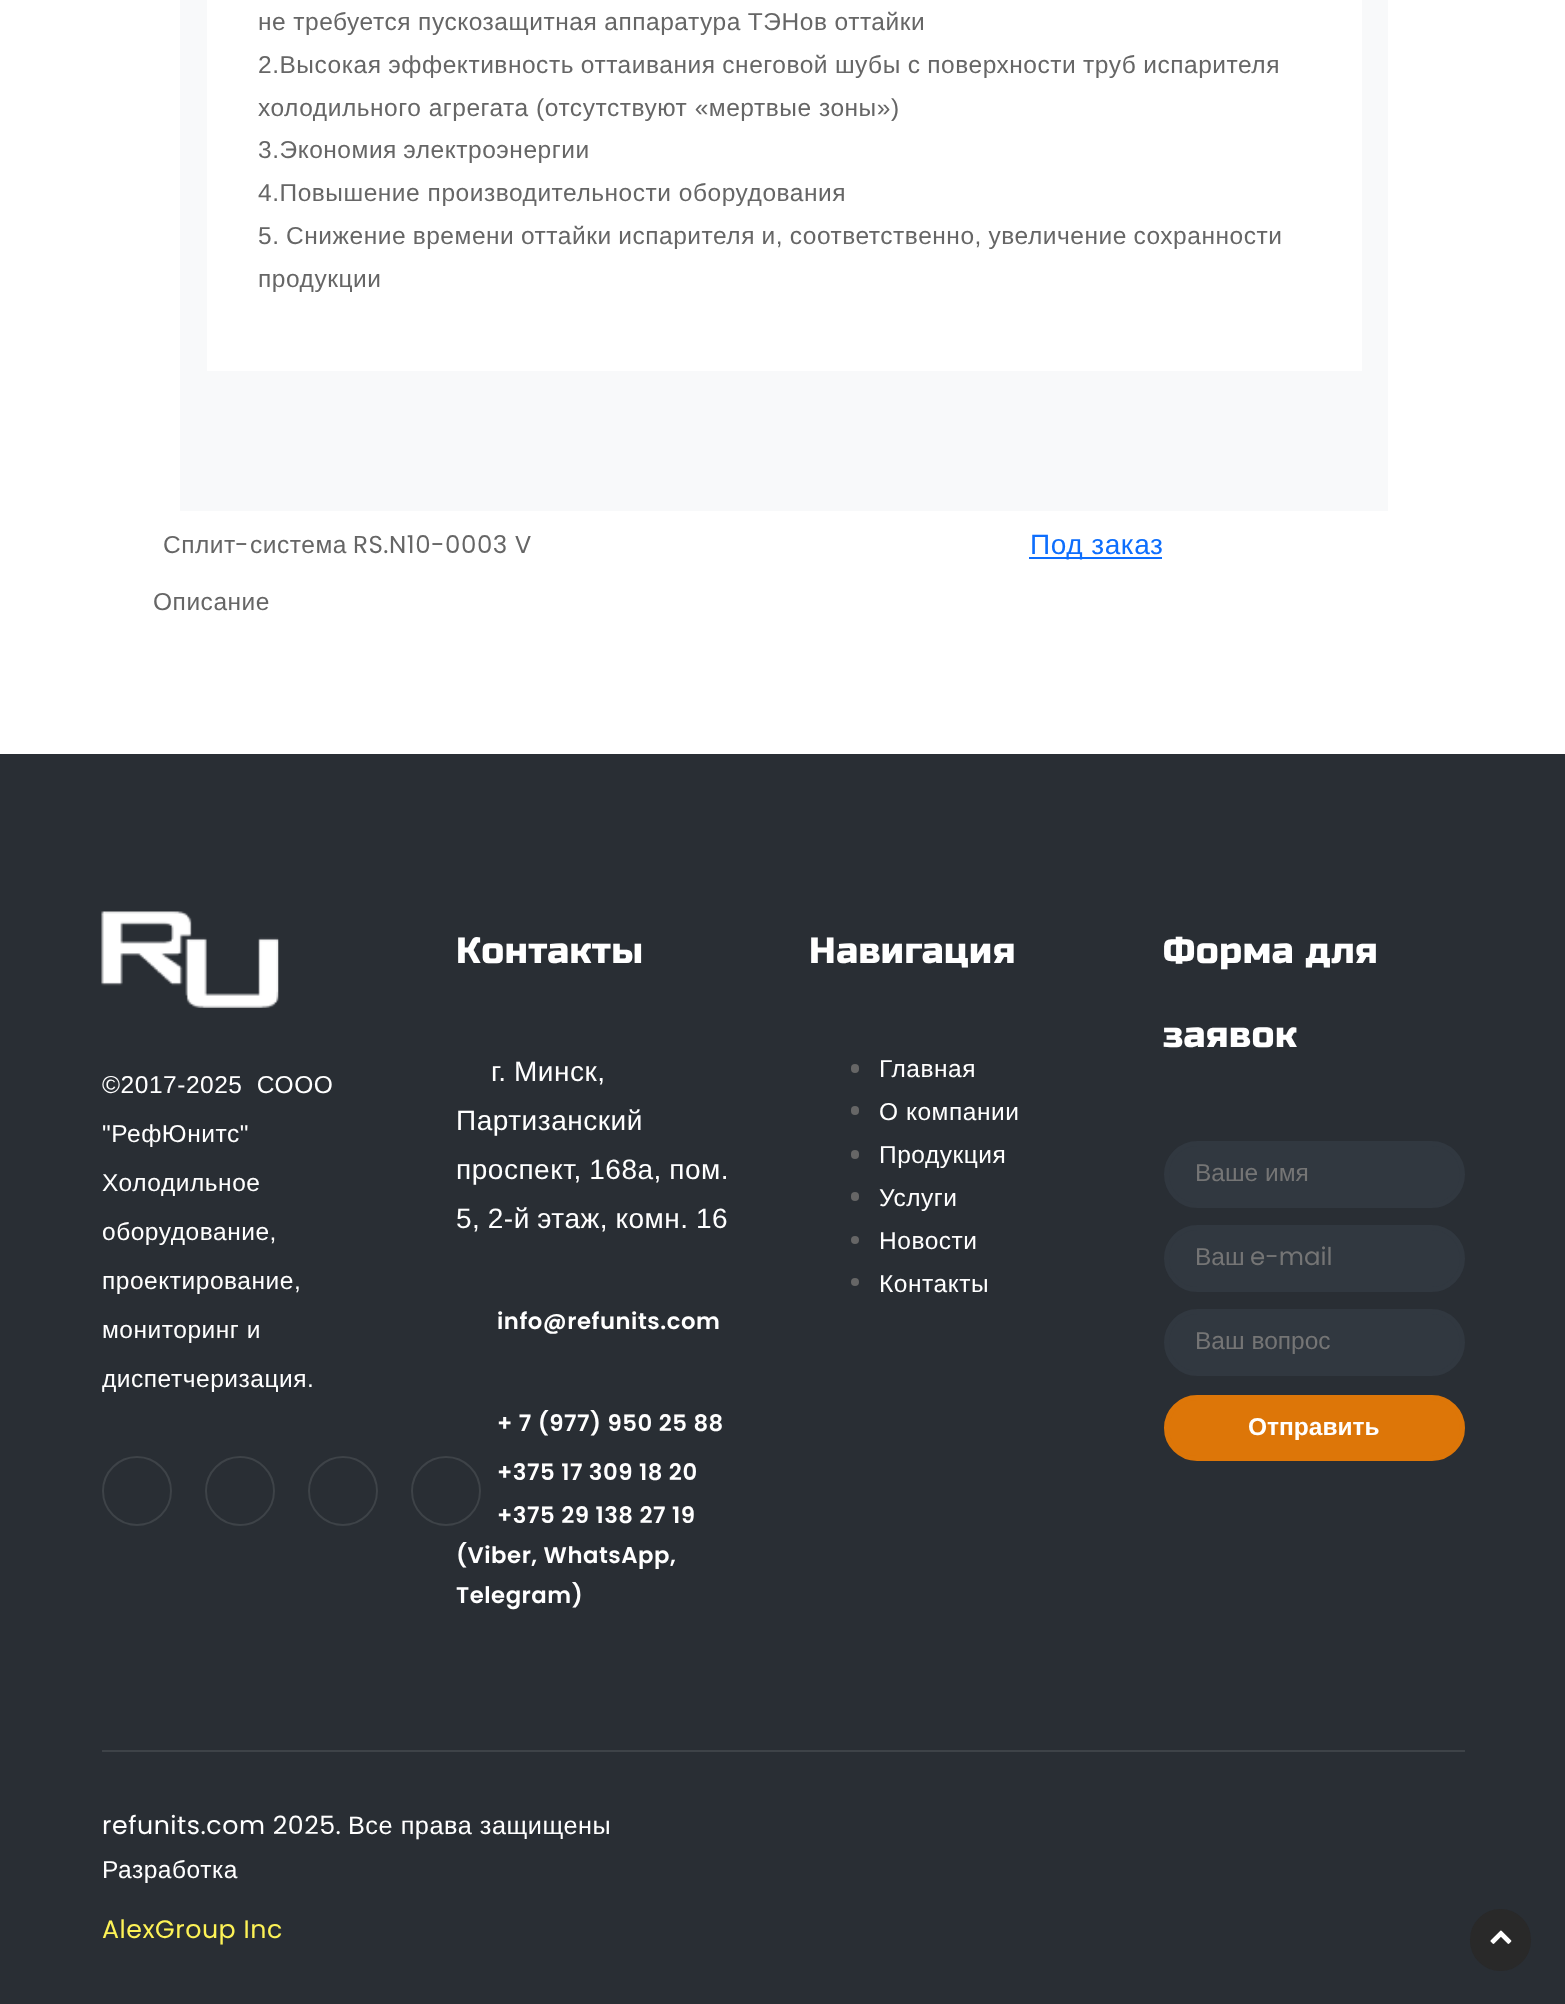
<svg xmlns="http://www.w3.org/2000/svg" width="1565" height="2004">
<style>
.a{font:24.5px Liberation Sans;letter-spacing:0.53px;fill:#666}
.b{font:24.5px Poppins;letter-spacing:0.53px;fill:#666}
.c{font:28px Liberation Sans;letter-spacing:0.53px;fill:#0d6efd}
.d{font:24.5px Liberation Sans;letter-spacing:0.53px;fill:#fff}
.e{font:36.5px Russo One;letter-spacing:0.53px;fill:#fff}
.f{font:28px Liberation Sans;letter-spacing:0.53px;fill:#fff}
.g{font:600 22.75px Poppins;letter-spacing:0.53px;fill:#fff}
.h{font:24.5px Liberation Sans;fill:#757575}
.i{font:24.5px Poppins;fill:#757575}
.j{font:bold 24.5px Liberation Sans;fill:#fff}
.k{font:25.25px Poppins;letter-spacing:0.53px;fill:#fff}
.l{font:25.25px Liberation Sans;letter-spacing:0.53px;fill:#fff}
.m{font:25.25px Poppins;letter-spacing:0.53px;fill:#fdf256}
</style>
<rect width="100%" height="100%" fill="#fff"/>
<path fill="#f8f9fa" d="M180 0h1208v511H180z"/>
<path fill="#fff" d="M207 0h1155v371H207z"/>
<path fill="#0d6efd" d="M1029 557h133v2H1029z"/>
<path fill="#292e34" d="M0 754h1565v1250H0z"/>
<image href="1.png" x="101" y="911" width="178" height="97"/>
<circle fill="none" stroke="#3e4348" stroke-width="2" cx="137" cy="1491" r="34"/>
<circle fill="none" stroke="#3e4348" stroke-width="2" cx="240" cy="1491" r="34"/>
<circle fill="none" stroke="#3e4348" stroke-width="2" cx="343" cy="1491" r="34"/>
<circle fill="none" stroke="#3e4348" stroke-width="2" cx="446" cy="1491" r="34"/>
<rect fill="#666" x="851" y="1064" width="8" height="9" rx="4"/>
<rect fill="#666" x="851" y="1106" width="8" height="9" rx="4"/>
<rect fill="#666" x="851" y="1150" width="8" height="9" rx="4"/>
<rect fill="#666" x="851" y="1192" width="8" height="9" rx="4"/>
<circle fill="#666" cx="855" cy="1240" r="4"/>
<circle fill="#666" cx="855" cy="1282" r="4"/>
<rect fill="#313840" stroke="#313840" stroke-width="5" x="1166.5" y="1143.5" width="296" height="62" rx="31"/>
<rect fill="#313840" stroke="#313840" stroke-width="5" x="1166.5" y="1227.5" width="296" height="62" rx="31"/>
<rect fill="#313840" stroke="#313840" stroke-width="5" x="1166.5" y="1311.5" width="296" height="62" rx="31"/>
<rect fill="#dd7608" stroke="#dd7608" stroke-width="5" x="1166.5" y="1397.5" width="296" height="61" rx="30.5"/>
<path fill="#3e4348" d="M102 1750h1363v2H102z"/>
<rect fill="#292929" x="1470" y="1909" width="61" height="62" rx="30.5"/>
<image href="2.png" x="1490" y="1930" width="22" height="14"/>
<text class="a" x="258" y="30" word-spacing="-0.25">не требуется пускозащитная аппаратура ТЭНов оттайки</text>
<text class="a" x="258" y="73" word-spacing="-0.5">2.Высокая эффективность оттаивания снеговой шубы с поверхности труб испарителя</text>
<text class="a" x="258" y="116">холодильного агрегата (отсутствуют «мертвые зоны»)</text>
<text class="a" x="258" y="158" word-spacing="-1">3.Экономия электроэнергии</text>
<text class="a" x="258" y="201">4.Повышение производительности оборудования</text>
<text class="a" x="258" y="244" word-spacing="-0.75">5. Снижение времени оттайки испарителя и, соответственно, увеличение сохранности</text>
<text class="a" x="258" y="287">продукции</text>
<text class="a" x="163" y="553">Сплит</text>
<text class="b" x="235" y="553">-</text>
<text class="a" x="250" y="553">система</text>
<text class="b" x="353" y="553">RS.N10-0003 V</text>
<text class="c" x="1030" y="554">Под заказ</text>
<text class="a" x="153" y="610">Описание</text>
<text class="d" x="102" y="1093" word-spacing="7">©2017-2025 СООО</text>
<text class="d" x="102" y="1142">"РефЮнитс"</text>
<text class="d" x="102" y="1191">Холодильное</text>
<text class="d" x="102" y="1240">оборудование,</text>
<text class="d" x="102" y="1289">проектирование,</text>
<text class="d" x="102" y="1338">мониторинг и</text>
<text class="d" x="102" y="1387">диспетчеризация.</text>
<text class="e" x="456" y="963">Контакты</text>
<text class="f" x="491" y="1081" word-spacing="-1">г. Минск,</text>
<text class="f" x="456" y="1130">Партизанский</text>
<text class="f" x="456" y="1179" word-spacing="-1">проспект, 168a, пом.</text>
<text class="f" x="456" y="1228" word-spacing="-1">5, 2-й этаж, комн. 16</text>
<text class="g" x="497" y="1329">info@refunits.com</text>
<text class="g" x="497" y="1431">+ 7 (977) 950 25 88</text>
<text class="g" x="497" y="1480">+375 17 309 18 20</text>
<text class="g" x="497" y="1523">+375 29 138 27 19</text>
<text class="g" x="456" y="1563">(Viber, WhatsApp,</text>
<text class="g" x="456" y="1603">Telegram)</text>
<text class="e" x="809" y="963">Навигация</text>
<text class="d" x="879" y="1077">Главная</text>
<text class="d" x="879" y="1120">О компании</text>
<text class="d" x="879" y="1163">Продукция</text>
<text class="d" x="879" y="1206">Услуги</text>
<text class="d" x="879" y="1249">Новости</text>
<text class="d" x="879" y="1292">Контакты</text>
<text class="e" x="1163" y="963">Форма для</text>
<text class="e" x="1163" y="1047">заявок</text>
<text class="h" x="1195" y="1181">Ваше имя</text>
<text class="h" x="1195" y="1265">Ваш</text>
<text class="i" x="1250" y="1265">e-mail</text>
<text class="h" x="1195" y="1349">Ваш вопрос</text>
<text class="j" x="1248" y="1435">Отправить</text>
<text class="k" x="102" y="1834">refunits.com 2025.</text>
<text class="l" x="348" y="1834">Все права защищены</text>
<text class="d" x="102" y="1878">Разработка</text>
<text class="m" x="102" y="1938">AlexGroup Inc</text>
</svg>
